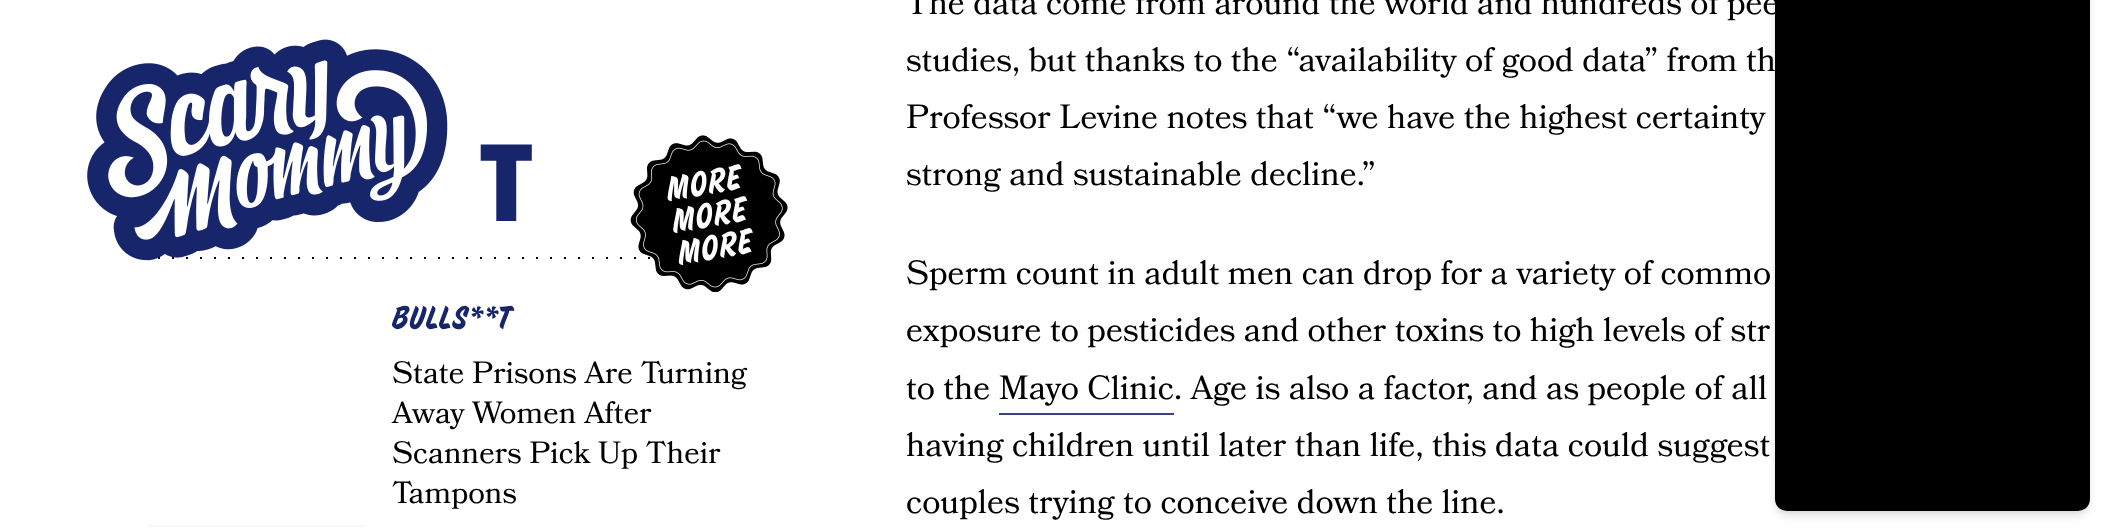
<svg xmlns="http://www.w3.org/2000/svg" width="2107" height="528">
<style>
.a{font:33.6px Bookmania;fill:#000}
.b{font:900 112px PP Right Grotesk;fill:#17256b}
.c{font:30.75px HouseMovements;letter-spacing:1.5px;fill:#17256b}
.d{font:30.75px Bookmania;fill:#000}
</style>
<rect width="100%" height="100%" fill="#fff"/>
<image href="3.png" x="158" y="257" width="492" height="2"/>
<image href="1.png" x="87" y="39" width="361" height="222"/>
<image href="2.png" x="630" y="135" width="158" height="157"/>
<path fill="#f8f8f8" d="M147 525h217v2H147z"/>
<path fill="#364487" d="M999 413h175v2H999z"/>
<rect fill="#0000001a" filter="blur(3.5px)" x="1778" y="-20" width="308" height="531" rx="9"/>
<rect fill="#0000001a" filter="blur(5px)" x="1776" y="-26" width="312" height="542" rx="11"/>
<rect fill="#000" x="1775" y="-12" width="315" height="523" rx="12"/>
<text class="a" x="906" y="14">The data come from around the world and hundreds of pee</text>
<text class="a" x="906" y="71">studies, but thanks to the “availability of good data” from th</text>
<text class="a" x="906" y="128">Professor Levine notes that “we have the highest certainty</text>
<text class="a" x="906" y="185">strong and sustainable decline.”</text>
<text class="b" x="480" y="221">T</text>
<text class="c" x="392" y="328">BULLS**T</text>
<text class="d" x="392" y="383">State Prisons Are Turning</text>
<text class="d" x="392" y="423">Away Women After</text>
<text class="d" x="392" y="463">Scanners Pick Up Their</text>
<text class="d" x="392" y="503">Tampons</text>
<text class="a" x="906" y="284">Sperm count in adult men can drop for a variety of commo</text>
<text class="a" x="906" y="341">exposure to pesticides and other toxins to high levels of str</text>
<text class="a" x="906" y="399">to the Mayo Clinic. Age is also a factor, and as people of all</text>
<text class="a" x="906" y="456">having children until later than life, this data could suggest</text>
<text class="a" x="906" y="513">couples trying to conceive down the line.</text>
</svg>
